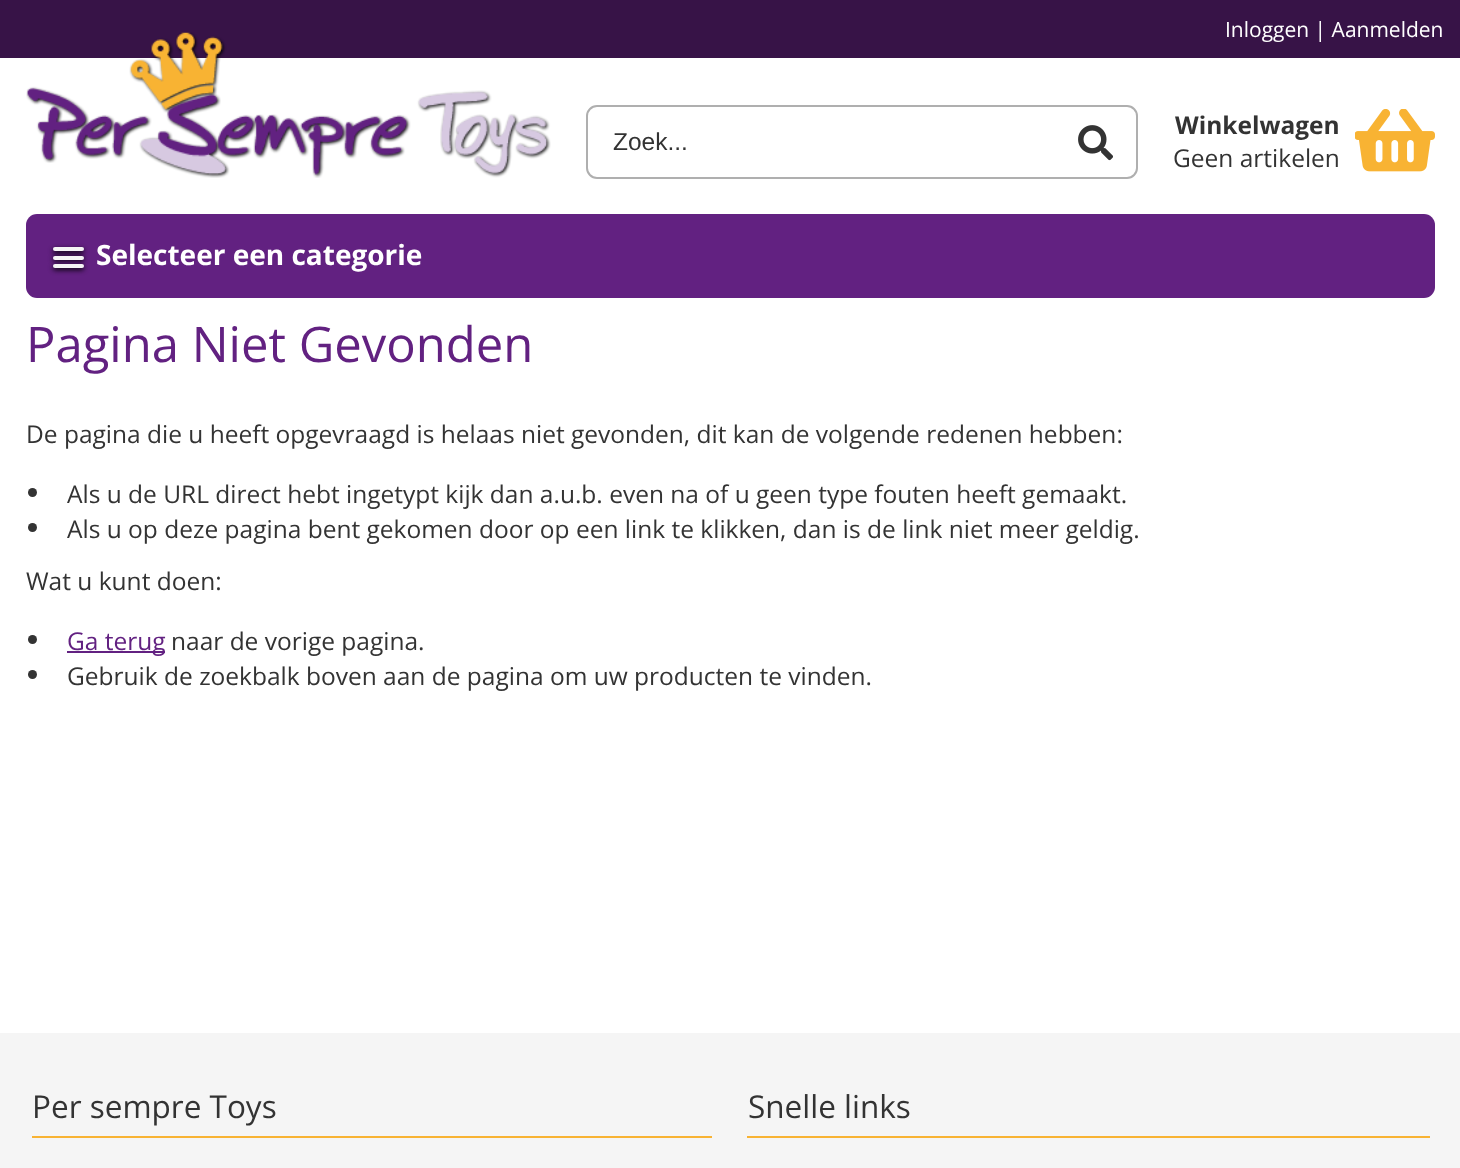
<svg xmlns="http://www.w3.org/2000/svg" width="1460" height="1168">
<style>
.a{font:21px Open Sans;fill:#fff}
.b{font:24.5px Liberation Sans;fill:#333}
.c{font:bold 24.5px Open Sans;fill:#333}
.d{font:24.5px Open Sans;fill:#333}
.e{font:bold 28px Open Sans;fill:#fff}
.f{font:49px Open Sans;fill:#622181}
.g{font:24.5px Open Sans;fill:#622181}
.h{font:31.5px Open Sans;fill:#333}
</style>
<rect width="100%" height="100%" fill="#fff"/>
<path fill="#371347" d="M0 0h1460v58H0z"/>
<image href="1.png" x="26" y="32" width="525" height="146"/>
<rect fill="none" stroke="#afafaf" stroke-width="2" x="587" y="106" width="550" height="72" rx="10"/>
<image href="2.png" x="1078" y="125" width="35" height="36"/>
<image href="3.png" x="1355" y="109" width="80" height="63"/>
<rect fill="#622181" x="26" y="214" width="1409" height="84" rx="11"/>
<rect fill="#000" filter="blur(2.5px)" x="53" y="249" width="31" height="4" rx="2"/>
<rect fill="#f5f5f5" x="53" y="247" width="31" height="4" rx="2"/>
<rect fill="#000" filter="blur(2.5px)" x="53" y="257" width="31" height="4" rx="2"/>
<rect fill="#f5f5f5" x="53" y="256" width="31" height="4" rx="2"/>
<rect fill="#000" filter="blur(2.5px)" x="53" y="266" width="31" height="4" rx="2"/>
<rect fill="#f5f5f5" x="53" y="264" width="31" height="4" rx="2"/>
<circle fill="#333" cx="32.5" cy="492.5" r="4.5"/>
<circle fill="#333" cx="32.5" cy="527.5" r="4.5"/>
<circle fill="#333" cx="32.5" cy="639.5" r="4.5"/>
<path fill="#622181" d="M67 651h98v2H67z"/>
<circle fill="#333" cx="32.5" cy="674.5" r="4.5"/>
<path fill="#f5f5f5" d="M0 1033h1460v135H0z"/>
<path fill="#f8b333" d="M32 1136h680v2H32z"/>
<path fill="#f8b333" d="M747 1136h683v2H747z"/>
<text class="a" x="1225" y="37">Inloggen | Aanmelden</text>
<text class="b" x="613" y="150">Zoek...</text>
<text class="c" x="1175" y="134">Winkelwagen</text>
<text class="d" x="1173" y="167">Geen artikelen</text>
<text class="e" x="96" y="265">Selecteer een categorie</text>
<text class="f" x="26" y="362">Pagina Niet Gevonden</text>
<text class="d" x="26" y="443">De pagina die u heeft opgevraagd is helaas niet gevonden, dit kan de volgende redenen hebben:</text>
<text class="d" x="67" y="503">Als u de URL direct hebt ingetypt kijk dan a.u.b. even na of u geen type fouten heeft gemaakt.</text>
<text class="d" x="67" y="538">Als u op deze pagina bent gekomen door op een link te klikken, dan is de link niet meer geldig.</text>
<text class="d" x="26" y="590">Wat u kunt doen:</text>
<text class="g" x="67" y="650">Ga terug</text>
<text class="d" x="171" y="650">naar de vorige pagina.</text>
<text class="d" x="67" y="685">Gebruik de zoekbalk boven aan de pagina om uw producten te vinden.</text>
<text class="h" x="32" y="1118">Per sempre Toys</text>
<text class="h" x="748" y="1118">Snelle links</text>
</svg>
